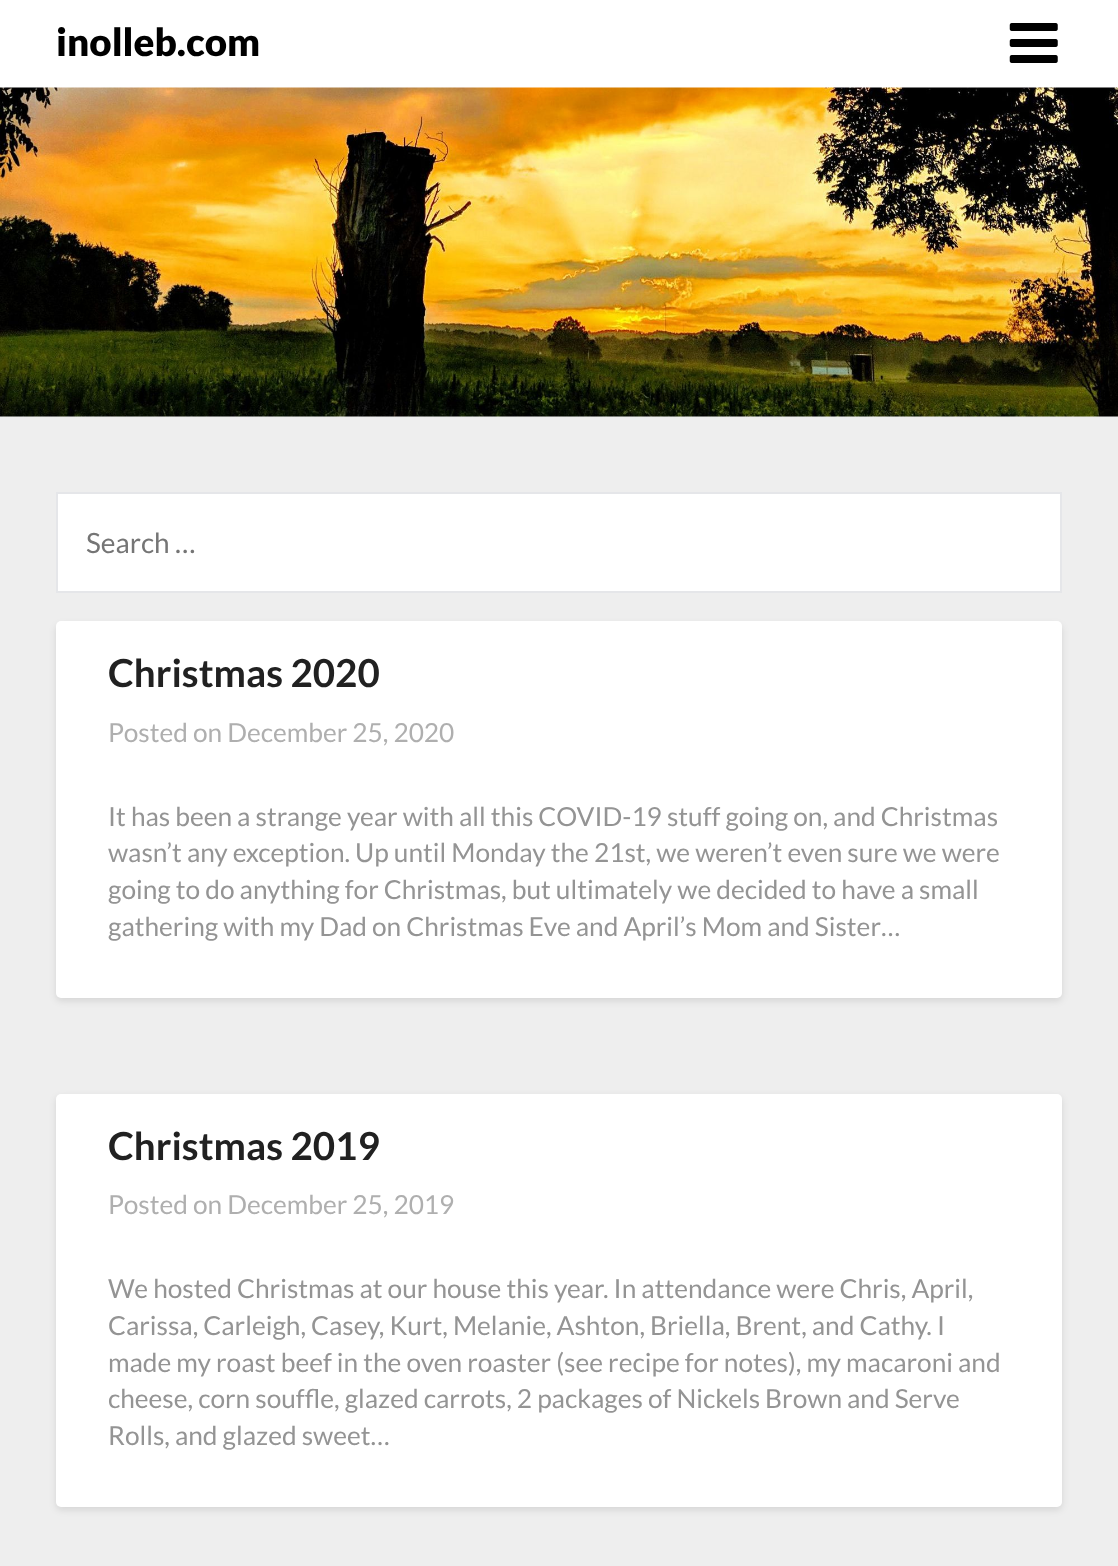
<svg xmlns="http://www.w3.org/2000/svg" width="1118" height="1566">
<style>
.a{font:900 38.5px Lato;fill:#000}
.b{font:28px Lato;fill:#757575}
.c{font:bold 38.5px Lato;fill:#212121}
.d{font:26.25px Lato;fill:#afafaf}
.e{font:26.25px Lato;fill:#949494}
</style>
<rect width="100%" height="100%" fill="#eee"/>
<path fill="#fff" d="M0 0h1118v88H0z"/>
<image href="1.png" x="1009" y="23" width="49" height="40"/>
<image href="2.png" x="0" y="87" width="1118" height="330"/>
<path fill="#fff" stroke="#e5e6e9" stroke-width="2" d="M57 493h1004v99H57z"/>
<rect fill="#0000001a" filter="blur(3.5px)" x="56" y="625" width="1006" height="376" rx="5"/>
<rect fill="#fff" x="56" y="621" width="1006" height="377" rx="5"/>
<rect fill="#0000001a" filter="blur(3.5px)" x="56" y="1097" width="1006" height="413" rx="5"/>
<rect fill="#fff" x="56" y="1094" width="1006" height="413" rx="5"/>
<text class="a" x="56" y="56">inolleb.com</text>
<text class="b" x="86" y="553">Search …</text>
<text class="c" x="108" y="687">Christmas 2020</text>
<text class="d" x="108" y="742">Posted on December 25, 2020</text>
<text class="e" x="108" y="826">It has been a strange year with all this COVID-19 stuff going on, and Christmas</text>
<text class="e" x="108" y="862">wasn’t any exception. Up until Monday the 21st, we weren’t even sure we were</text>
<text class="e" x="108" y="899">going to do anything for Christmas, but ultimately we decided to have a small</text>
<text class="e" x="108" y="936">gathering with my Dad on Christmas Eve and April’s Mom and Sister…</text>
<text class="c" x="108" y="1160">Christmas 2019</text>
<text class="d" x="108" y="1214">Posted on December 25, 2019</text>
<text class="e" x="108" y="1298">We hosted Christmas at our house this year. In attendance were Chris, April,</text>
<text class="e" x="108" y="1335">Carissa, Carleigh, Casey, Kurt, Melanie, Ashton, Briella, Brent, and Cathy. I</text>
<text class="e" x="108" y="1372">made my roast beef in the oven roaster (see recipe for notes), my macaroni and</text>
<text class="e" x="108" y="1408">cheese, corn souffle, glazed carrots, 2 packages of Nickels Brown and Serve</text>
<text class="e" x="108" y="1445">Rolls, and glazed sweet…</text>
</svg>
